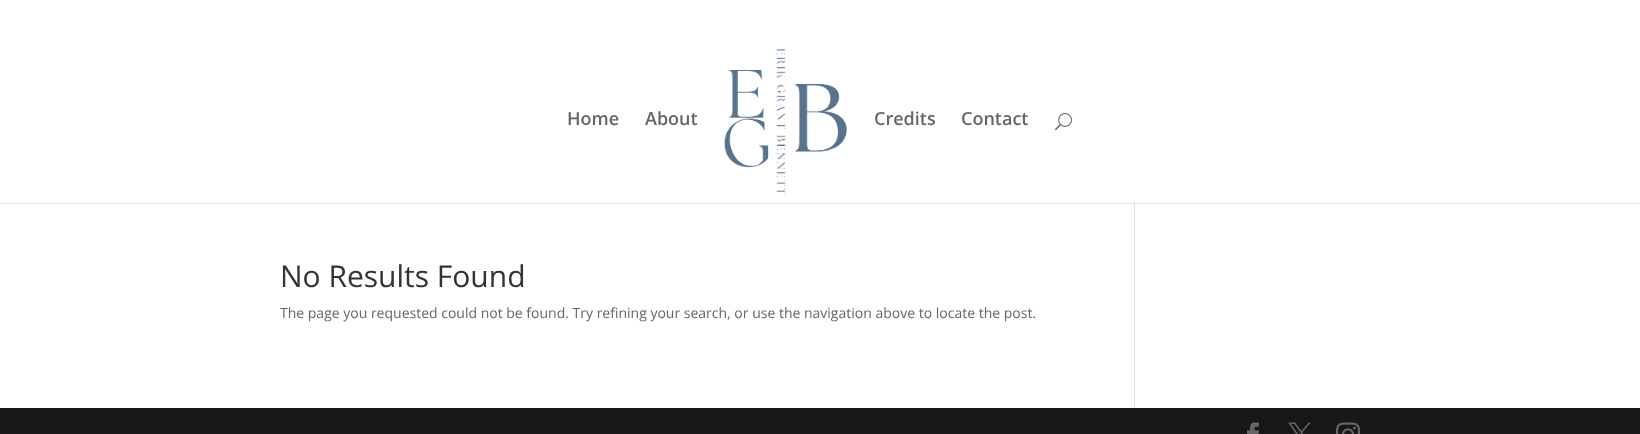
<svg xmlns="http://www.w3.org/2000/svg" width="1640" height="434">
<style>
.a{font:600 18px Open Sans;fill:#666}
.b{font:30px Open Sans;fill:#333}
.c{font:14px Open Sans;fill:#666}
</style>
<rect width="100%" height="100%" fill="#fff"/>
<path fill="#e6e6e6" d="M0 203h1640v1H0z"/>
<image href="1.png" x="724" y="49" width="123" height="146"/>
<image href="2.png" x="1055" y="113" width="17" height="18"/>
<path fill="#e2e2e2" d="M1134 203h1v205H1134z"/>
<path fill="#cbcbcb" d="M1134 203h1v1H1134z"/>
<path fill="#171717" d="M0 408h1640v26H0z"/>
<image href="3.png" x="1247" y="422" width="12" height="12"/>
<image href="4.png" x="1288" y="422" width="23" height="12"/>
<image href="5.png" x="1336" y="422" width="24" height="12"/>
<text class="a" x="567" y="125">Home</text>
<text class="a" x="645" y="125">About</text>
<text class="a" x="874" y="125">Credits</text>
<text class="a" x="961" y="125">Contact</text>
<text class="b" x="280" y="287">No Results Found</text>
<text class="c" x="280" y="318">The page you requested could not be found. Try refining your search, or use the navigation above to locate the post.</text>
</svg>
